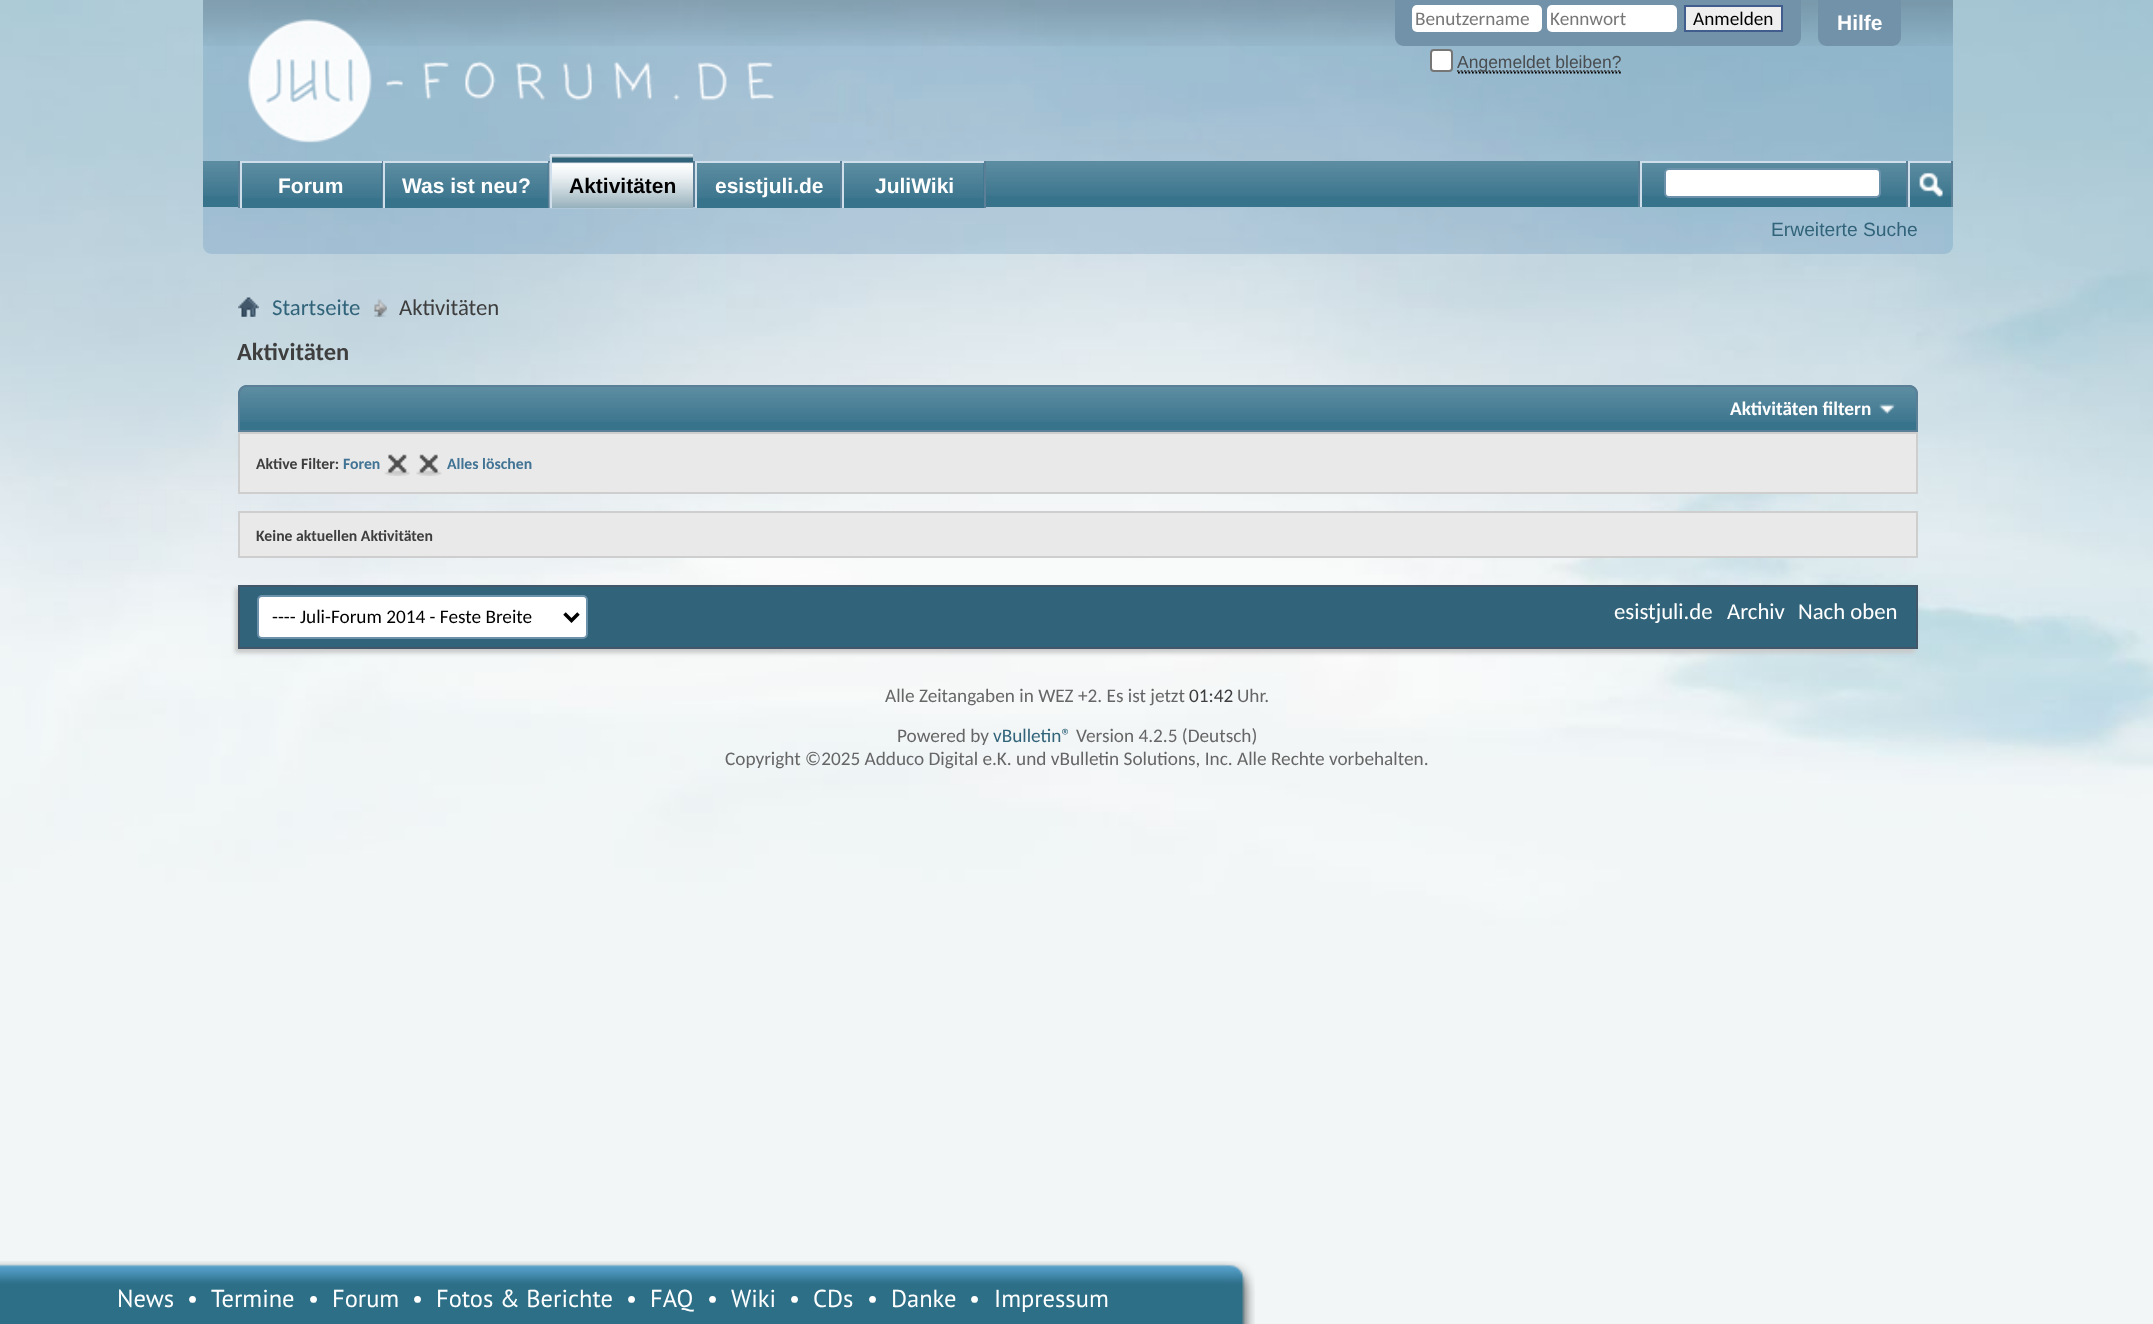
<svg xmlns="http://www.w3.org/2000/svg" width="2153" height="1324">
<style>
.a{font:19.25px Carlito;fill:#777}
.b{font:19.25px Carlito;fill:#000}
.c{font:17.5px Liberation Sans;fill:#494d50}
.d{font:bold 21px Liberation Sans;fill:#fff}
.e{font:bold 21px Liberation Sans;fill:#000}
.f{font:19.25px Liberation Sans;fill:#31647a}
.g{font:22.75px Carlito;fill:#31647a}
.h{font:22.75px Carlito;fill:#3e3e3e}
.i{font:bold 24.5px Carlito;fill:#3e3e3e}
.j{font:bold 19.25px Carlito;fill:#fff}
.k{font:bold 15.75px Carlito;fill:#3e3e3e}
.l{font:bold 15.75px Carlito;fill:#417394}
.m{font:22.75px Carlito;fill:#fff}
.n{font:19.25px Carlito;fill:#666}
.o{font:19.25px Carlito;fill:#3e3e3e}
.p{font:19.25px Carlito;fill:#31647a}
.q{font:24.5px PT Sans;fill:#fff}
</style>
<rect width="100%" height="100%" fill="#fff"/>
<image href="1.png" x="0" y="0" width="2153" height="1324"/>
<path fill="#0b559926" d="M203 0h1750v245c0 5-4 9-9 9h-1732c-5 0-9-4-9-9z"/>
<image href="2.png" x="203" y="0" width="1750" height="46"/>
<image href="3.png" x="248" y="19" width="526" height="124"/>
<path fill="#7192a8" d="M1395 0h406v37c0 5-4 9-9 9h-388c-5 0-9-4-9-9z"/>
<rect fill="#fff" x="1412" y="5" width="130" height="27" rx="5"/>
<rect fill="#fff" x="1547" y="5" width="130" height="27" rx="5"/>
<path fill="#efefef" stroke="#415d8d" stroke-width="2" d="M1685 6h97v25H1685z"/>
<rect fill="#fff" stroke="#767676" stroke-width="2" x="1431" y="50" width="21" height="21" rx="3"/>
<path fill="none" stroke="#000" stroke-width="1.8" stroke-dasharray="1.75 1.75" d="M1458 72.5h164"/>
<path fill="none" stroke="#494d50" stroke-width="1.8" stroke-dasharray="1.75 1.75" d="M1457 71h164.5"/>
<path fill="#7192a8" d="M1818 0h83v37c0 5-4 9-9 9h-65c-5 0-9-4-9-9z"/>
<path fill="#38738c" d="M203 161h1748v46H203z"/>
<image href="4.png" x="203" y="161" width="1748" height="35"/>
<path fill="#5a7f97" d="M382 161h1v47H382z"/>
<path fill="#5a7f97" d="M238 161h2v47H238z"/>
<path fill="#38738c" d="M242 163h140v45H242z"/>
<image href="5.png" x="239" y="163" width="143" height="35"/>
<path fill="#cedfeb" d="M240 161h142v2H240z"/>
<path fill="#cedfeb" d="M240 161h2v47H240z"/>
<path fill="#5a7f97" d="M548 161h2v47H548z"/>
<path fill="#38738c" d="M385 163h163v45H385z"/>
<image href="6.png" x="385" y="163" width="163" height="35"/>
<path fill="#cedfeb" d="M383 161h165v2H383z"/>
<path fill="#cedfeb" d="M383 161h2v47H383z"/>
<path fill="#5a7f97" d="M693 161h2v46H693z"/>
<path fill="#31647a" d="M552 156h141v52H552z"/>
<image href="7.png" x="549" y="155" width="144" height="54"/>
<path fill="#cedfeb" d="M550 154h143v2H550z"/>
<path fill="#cedfeb" d="M550 154h2v54H550z"/>
<path fill="#5a7f97" d="M840 161h2v47H840z"/>
<path fill="#38738c" d="M697 163h143v45H697z"/>
<image href="8.png" x="694" y="163" width="146" height="35"/>
<path fill="#cedfeb" d="M695 161h145v2H695z"/>
<path fill="#cedfeb" d="M695 161h2v47H695z"/>
<path fill="#5a7f97" d="M984 161h2v47H984z"/>
<path fill="#38738c" d="M844 163h140v45H844z"/>
<image href="5.png" x="841" y="163" width="143" height="35"/>
<path fill="#cedfeb" d="M842 161h142v2H842z"/>
<path fill="#cedfeb" d="M842 161h2v47H842z"/>
<path fill="#5a7f97" d="M1638 161h2v46H1638z"/>
<path fill="#cedfeb" d="M1640 161h266v2H1640z"/>
<path fill="#cedfeb" d="M1640 161h2v46H1640z"/>
<rect fill="#fff" stroke="#6b91ab" stroke-width="2" x="1665" y="169" width="215" height="28" rx="4"/>
<path fill="#5a7f97" d="M1951 161h2v46H1951z"/>
<path fill="#5a7f97" d="M1906 161h2v46H1906z"/>
<path fill="#cedfeb" d="M1908 161h43v2H1908z"/>
<path fill="#cedfeb" d="M1908 161h2v46H1908z"/>
<image href="9.png" x="1919" y="172" width="24" height="26"/>
<image href="10.png" x="238" y="297" width="21" height="20"/>
<image href="11.png" x="374" y="299" width="13" height="18"/>
<path fill="#38738c" d="M247 385h1662c5 0 9 4 9 9v38h-1680v-38c0-5 4-9 9-9z"/>
<image href="12.png" x="238" y="386" width="1680" height="36"/>
<path fill="none" stroke="#5a7f97" stroke-width="2" d="M247 386h1662c4.5 0 8 3.5 8 8v37h-1678v-37c0-4.5 3.5-8 8-8z"/>
<image href="13.png" x="1879" y="404" width="17" height="10"/>
<path fill="#e9e9e9" stroke="#cecece" stroke-width="2" d="M239 433h1678v60H239z"/>
<image href="14.png" x="384" y="454" width="26" height="22"/>
<image href="15.png" x="416" y="454" width="26" height="22"/>
<path fill="#e9e9e9" stroke="#cecece" stroke-width="2" d="M239 512h1678v45H239z"/>
<path fill="#c8c8c8" filter="blur(2px)" d="M235 588h1680v65H235z"/>
<path fill="#31647a" stroke="#425769" stroke-width="2" d="M239 586h1678v62H239z"/>
<rect fill="#fff" stroke="#6b91ab" stroke-width="2" x="258" y="596" width="329" height="42" rx="4"/>
<path fill="none" stroke="#000" stroke-width="3.5" d="M564.5 613.5l7 7l7-7"/>
<image href="16.png" x="0" y="1261" width="1225" height="63"/>
<image href="17.png" x="1225" y="1261" width="30" height="63"/>
<text class="a" x="1415" y="25">Benutzername</text>
<text class="a" x="1550" y="25">Kennwort</text>
<text class="b" x="1693" y="25">Anmelden</text>
<text class="c" x="1457" y="68">Angemeldet bleiben?</text>
<text class="d" x="1837" y="30">Hilfe</text>
<text class="d" x="278" y="193">Forum</text>
<text class="d" x="402" y="193">Was ist neu?</text>
<text class="e" x="569" y="193">Aktivitäten</text>
<text class="d" x="715" y="193">esistjuli.de</text>
<text class="d" x="875" y="193">JuliWiki</text>
<text class="f" x="1771" y="236">Erweiterte Suche</text>
<text class="g" x="272" y="315">Startseite</text>
<text class="h" x="399" y="315">Aktivitäten</text>
<text class="i" x="237" y="360">Aktivitäten</text>
<text class="j" x="1730" y="415">Aktivitäten filtern</text>
<text class="k" x="256" y="469">Aktive Filter:</text>
<text class="l" x="343" y="469">Foren</text>
<text class="l" x="447" y="469">Alles löschen</text>
<text class="k" x="256" y="541">Keine aktuellen Aktivitäten</text>
<text class="b" x="272" y="623">---- Juli-Forum 2014 - Feste Breite</text>
<text class="m" x="1614" y="619">esistjuli.de</text>
<text class="m" x="1727" y="619">Archiv</text>
<text class="m" x="1798" y="619">Nach oben</text>
<text class="n" x="885" y="702">Alle Zeitangaben in WEZ +2. Es ist jetzt</text>
<text class="o" x="1189" y="702">01:42</text>
<text class="n" x="1237" y="702">Uhr.</text>
<text class="n" x="897" y="742">Powered by</text>
<text class="p" x="993" y="742">vBulletin®</text>
<text class="n" x="1076" y="742">Version 4.2.5 (Deutsch)</text>
<text class="n" x="725" y="765">Copyright ©2025 Adduco Digital e.K. und vBulletin Solutions, Inc. Alle Rechte vorbehalten.</text>
<text class="q" x="117" y="1307">News</text>
<text class="q" x="187" y="1307">•</text>
<text class="q" x="211" y="1307">Termine</text>
<text class="q" x="308" y="1307">•</text>
<text class="q" x="332" y="1307">Forum</text>
<text class="q" x="412" y="1307">•</text>
<text class="q" x="436" y="1307">Fotos &amp; Berichte</text>
<text class="q" x="626" y="1307">•</text>
<text class="q" x="650" y="1307">FAQ</text>
<text class="q" x="707" y="1307">•</text>
<text class="q" x="731" y="1307">Wiki</text>
<text class="q" x="789" y="1307">•</text>
<text class="q" x="813" y="1307">CDs</text>
<text class="q" x="867" y="1307">•</text>
<text class="q" x="891" y="1307">Danke</text>
<text class="q" x="969" y="1307">•</text>
<text class="q" x="994" y="1307">Impressum</text>
</svg>
